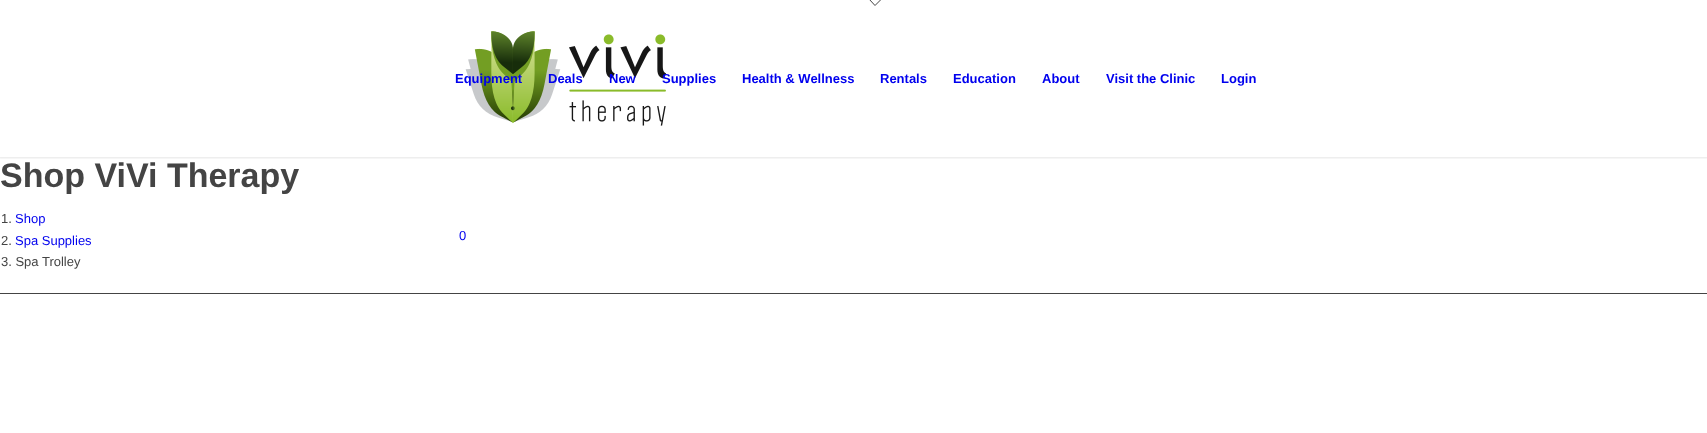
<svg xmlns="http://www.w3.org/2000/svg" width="1707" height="433">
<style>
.a{font:bold 34px Liberation Sans;fill:#444}
.b{font:13px Liberation Sans;fill:#444}
.c{font:13px Liberation Sans;fill:#00e}
.d{font:bold 13px Liberation Sans;fill:#00e}
</style>
<defs>
<clipPath id="clip1"><path d="M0 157h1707v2H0z"/></clipPath>
</defs>
<rect width="100%" height="100%" fill="#fff"/>
<path fill="#444" d="M0 293h1707v1H0z"/>
<g clip-path="url(#clip1)">
<path fill="#0000001a" filter="blur(1px)" d="M-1 -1h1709v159H-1z"/>
</g>
<image href="1.png" x="465" y="31" width="201" height="95"/>
<path fill="none" stroke="#444" d="M875-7.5l6.5 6.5l-6.5 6.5l-6-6.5z"/>
<text class="a" x="0" y="187">Shop ViVi Therapy</text>
<text class="b" x="1" y="223">1.</text>
<text class="c" x="15" y="223">Shop</text>
<text class="b" x="1" y="245">2.</text>
<text class="c" x="15" y="245">Spa Supplies</text>
<text class="b" x="1" y="266">3. Spa Trolley</text>
<text class="d" x="455" y="83">Equipment</text>
<text class="d" x="548" y="83">Deals</text>
<text class="d" x="609" y="83">New</text>
<text class="d" x="662" y="83">Supplies</text>
<text class="d" x="742" y="83">Health &amp; Wellness</text>
<text class="d" x="880" y="83">Rentals</text>
<text class="d" x="953" y="83">Education</text>
<text class="d" x="1042" y="83">About</text>
<text class="d" x="1106" y="83">Visit the Clinic</text>
<text class="d" x="1221" y="83">Login</text>
<text class="c" x="459" y="240">0</text>
</svg>
